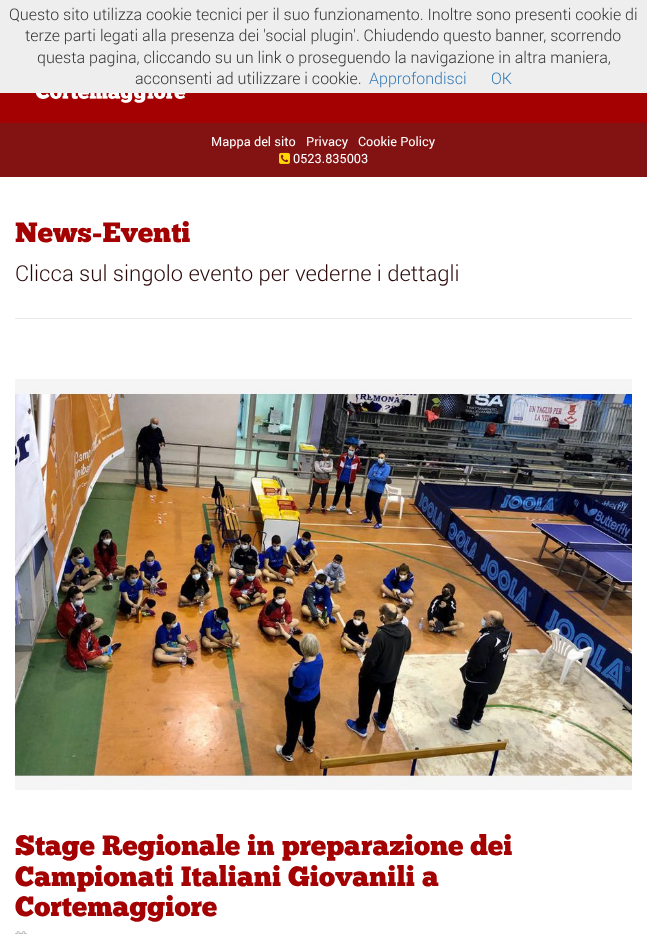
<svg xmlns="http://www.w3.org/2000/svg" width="647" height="934">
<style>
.a{font:300 16px Roboto;fill:#333}
.b{font:300 16px Roboto;fill:#337ab7}
.c{font:12.75px roboto;fill:#fff}
.d{font:28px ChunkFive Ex;fill:#a40202}
.e{font:300 22px Roboto;fill:#2a0707}
</style>
<rect width="100%" height="100%" fill="#fff"/>
<path fill="#eee" d="M0 0h647v93H0z"/>
<path fill="#a40202" d="M0 93h647v30H0z"/>
<image href="1.png" x="35" y="93" width="151" height="10"/>
<path fill="#831313" d="M0 123h647v54H0z"/>
<image href="2.png" x="279" y="152" width="11" height="12"/>
<path fill="#eaeaea" d="M15 318h617v1H15z"/>
<image href="3.png" x="15" y="379" width="617" height="411"/>
<image href="4.png" x="15" y="931" width="12" height="3"/>
<text class="a" x="9" y="20">Questo sito utilizza cookie tecnici per il suo funzionamento. Inoltre sono presenti cookie di</text>
<text class="a" x="25" y="41">terze parti legati alla presenza dei 'social plugin'. Chiudendo questo banner, scorrendo</text>
<text class="a" x="37" y="63">questa pagina, cliccando su un link o proseguendo la navigazione in altra maniera,</text>
<text class="a" x="135" y="84">acconsenti ad utilizzare i cookie.</text>
<text class="b" x="369" y="84">Approfondisci</text>
<text class="b" x="491" y="84">OK</text>
<text class="c" x="211" y="146">Mappa del sito</text>
<text class="c" x="306" y="146">Privacy</text>
<text class="c" x="358" y="146">Cookie Policy</text>
<text class="c" x="293" y="163">0523.835003</text>
<text class="d" x="15" y="242">News-Eventi</text>
<text class="e" x="15" y="281">Clicca sul singolo evento per vederne i dettagli</text>
<text class="d" x="15" y="855">Stage Regionale in preparazione dei</text>
<text class="d" x="15" y="886">Campionati Italiani Giovanili a</text>
<text class="d" x="15" y="916">Cortemaggiore</text>
</svg>
